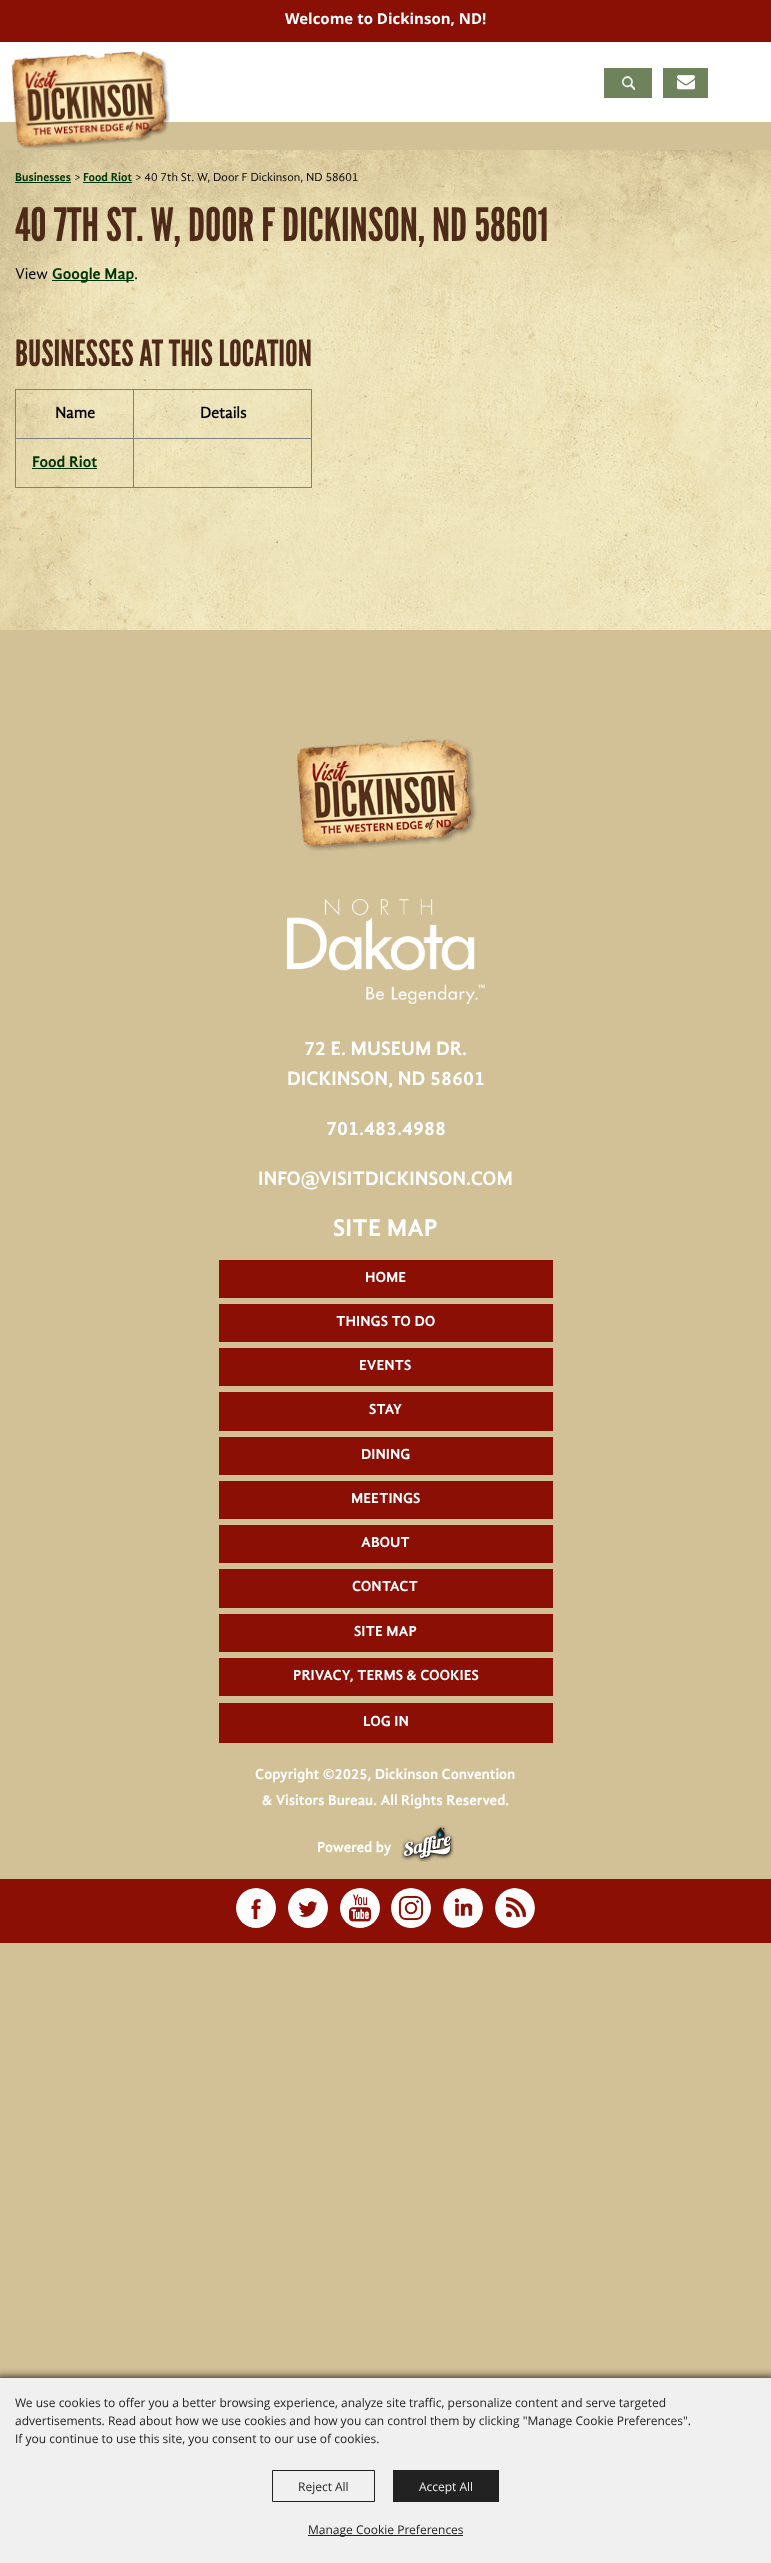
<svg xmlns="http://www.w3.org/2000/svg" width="771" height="2563">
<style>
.a{font:bold 15px Open Sans;fill:#fff}
.b{font:bold 12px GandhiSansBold;fill:#003405}
.c{font:12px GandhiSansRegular;fill:#000}
.d{font:46px League Gothic;fill:#4d2b18}
.e{font:16px GandhiSansRegular;fill:#000}
.f{font:bold 16px GandhiSansBold;fill:#003405}
.g{font:36px League Gothic;fill:#4d2b18}
.h{font:bold 16px GandhiSansRegular;fill:#000}
.i{font:bold 20px GandhiSansBold;fill:#fff}
.j{font:bold 25px GandhiSansBold;fill:#fff}
.k{font:bold 15px GandhiSansBold;fill:#fff}
.l{font:12px Open Sans;fill:#222}
.m{font:12px Open Sans;fill:#f0f0f0}
</style>
<rect width="100%" height="100%" fill="#d2c096"/>
<path fill="#8a0f05" d="M0 0h771v42H0z"/>
<path fill="#fff" d="M0 42h771v80H0z"/>
<image href="1.png" x="11" y="51" width="159" height="98"/>
<path fill="#6e835b" d="M604 68h48v30H604z"/>
<image href="2.png" x="622" y="76" width="13" height="14"/>
<path fill="#6e835b" d="M663 68h45v30H663z"/>
<image href="3.png" x="677" y="75" width="18" height="15"/>
<image href="4.png" x="0" y="150" width="771" height="480"/>
<path fill="#003405" d="M15 182h56v1H15z"/>
<path fill="#003405" d="M83 182h49v1H83z"/>
<path fill="#003405" d="M52 280h82v1H52z"/>
<path fill="#808080" d="M15 389h297v1H15z"/>
<path fill="#808080" d="M311 389h1v99H311z"/>
<path fill="#808080" d="M15 487h297v1H15z"/>
<path fill="#808080" d="M15 389h1v99H15z"/>
<path fill="#808080" d="M133 438h179v1H133z"/>
<path fill="#808080" d="M133 438h1v50H133z"/>
<path fill="#808080" d="M15 438h119v1H15z"/>
<path fill="#808080" d="M133 389h1v50H133z"/>
<path fill="#003405" d="M32 468h65v1H32z"/>
<image href="5.png" x="297" y="738" width="180" height="113"/>
<image href="6.png" x="287" y="899" width="198" height="105"/>
<path fill="#8c0f05" d="M219 1260h334v38H219z"/>
<path fill="#8c0f05" d="M219 1304h334v38H219z"/>
<path fill="#8c0f05" d="M219 1348h334v38H219z"/>
<path fill="#8c0f05" d="M219 1392h334v39H219z"/>
<path fill="#8c0f05" d="M219 1437h334v38H219z"/>
<path fill="#8c0f05" d="M219 1481h334v38H219z"/>
<path fill="#8c0f05" d="M219 1525h334v38H219z"/>
<path fill="#8c0f05" d="M219 1569h334v39H219z"/>
<path fill="#8c0f05" d="M219 1614h334v38H219z"/>
<path fill="#8c0f05" d="M219 1658h334v38H219z"/>
<path fill="#8c0f05" d="M219 1703h334v40H219z"/>
<image href="7.png" x="401" y="1825" width="53" height="37"/>
<path fill="#8c0f05" d="M0 1879h771v64H0z"/>
<image href="8.png" x="236" y="1888" width="40" height="40"/>
<image href="9.png" x="288" y="1888" width="40" height="40"/>
<image href="10.png" x="340" y="1888" width="40" height="40"/>
<image href="11.png" x="391" y="1888" width="40" height="40"/>
<image href="12.png" x="443" y="1888" width="40" height="40"/>
<image href="13.png" x="495" y="1888" width="40" height="40"/>
<path fill="#000" filter="blur(5px)" d="M-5 2378h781v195H-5z"/>
<path fill="#f0f0f0" d="M0 2378h771v185H0z"/>
<path fill="none" stroke="#222" d="M272.5 2470.5h102v31H272.5z"/>
<path fill="#222" d="M393 2470h106v32H393z"/>
<path fill="#222" d="M308 2535h155v1H308z"/>
<text class="a" x="285" y="24">Welcome to Dickinson, ND!</text>
<text class="b" x="15" y="181">Businesses</text>
<text class="c" x="74" y="181">&gt;</text>
<text class="b" x="83" y="181">Food Riot</text>
<text class="c" x="135" y="181">&gt; 40 7th St. W, Door F Dickinson, ND 58601</text>
<text class="d" x="15" y="241">40 7TH ST. W, DOOR F DICKINSON, ND 58601</text>
<text class="e" x="15" y="279">View</text>
<text class="f" x="52" y="279">Google Map</text>
<text class="e" x="134" y="279">.</text>
<text class="g" x="15" y="366">BUSINESSES AT THIS LOCATION</text>
<text class="h" x="55" y="418">Name</text>
<text class="h" x="200" y="418">Details</text>
<text class="f" x="32" y="467">Food Riot</text>
<text class="i" x="304" y="1055">72 E. MUSEUM DR.</text>
<text class="i" x="287" y="1085">DICKINSON, ND 58601</text>
<text class="i" x="326" y="1135">701.483.4988</text>
<text class="i" x="258" y="1185">INFO@VISITDICKINSON.COM</text>
<text class="j" x="333" y="1236">SITE MAP</text>
<text class="k" x="365" y="1282">HOME</text>
<text class="k" x="336" y="1326">THINGS TO DO</text>
<text class="k" x="359" y="1370">EVENTS</text>
<text class="k" x="369" y="1414">STAY</text>
<text class="k" x="361" y="1459">DINING</text>
<text class="k" x="351" y="1503">MEETINGS</text>
<text class="k" x="361" y="1547">ABOUT</text>
<text class="k" x="352" y="1591">CONTACT</text>
<text class="k" x="354" y="1636">SITE MAP</text>
<text class="k" x="293" y="1680">PRIVACY, TERMS &amp; COOKIES</text>
<text class="k" x="363" y="1726">LOG IN</text>
<text class="k" x="255" y="1779">Copyright ©2025, Dickinson Convention</text>
<text class="k" x="262" y="1805">&amp; Visitors Bureau. All Rights Reserved.</text>
<text class="k" x="317" y="1852">Powered by</text>
<text class="l" x="15" y="2407">We use cookies to offer you a better browsing experience, analyze site traffic, personalize content and serve targeted</text>
<text class="l" x="15" y="2425">advertisements. Read about how we use cookies and how you can control them by clicking "Manage Cookie Preferences".</text>
<text class="l" x="15" y="2443">If you continue to use this site, you consent to our use of cookies.</text>
<text class="l" x="298" y="2491">Reject All</text>
<text class="m" x="419" y="2491">Accept All</text>
<text class="l" x="308" y="2534">Manage Cookie Preferences</text>
</svg>
